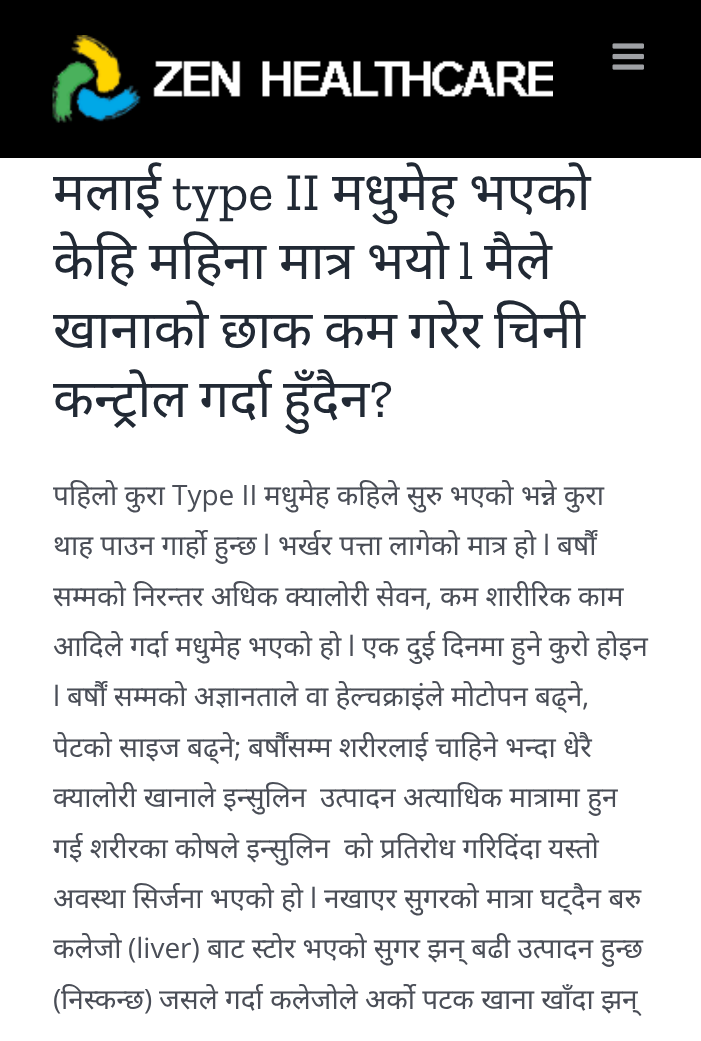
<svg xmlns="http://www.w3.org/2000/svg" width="701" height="1041">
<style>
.a{font:53.25px Noto Sans;fill:#212934}
.b{font:53.25px Zilla Slab;fill:#212934}
.c{font:28px Noto Sans;fill:#4a4e57}
.d{font:28px Open Sans;fill:#4a4e57}
</style>
<rect width="100%" height="100%" fill="#fff"/>
<path fill="#000" d="M0 0h701v158H0z"/>
<image href="1.png" x="52" y="35" width="501" height="88"/>
<image href="2.png" x="612" y="43" width="32" height="27"/>
<text class="a" x="53" y="210">मलाई</text>
<text class="b" x="172" y="210">type II</text>
<text class="a" x="332" y="210">मधुमेह</text>
<text class="a" x="469" y="210">भएको</text>
<text class="a" x="53" y="279" word-spacing="-1">केहि महिना मात्र भयो</text>
<text class="b" x="459" y="279">l</text>
<text class="a" x="484" y="279">मैले</text>
<text class="a" x="53" y="348" word-spacing="-2">खानाको छाक कम गरेर चिनी</text>
<text class="a" x="53" y="417" word-spacing="-2">कन्ट्रोल गर्दा हुँदैन</text>
<text class="b" x="369" y="417">?</text>
<text class="c" x="53" y="505">पहिलो कुरा</text>
<text class="d" x="172" y="505">Type II</text>
<text class="c" x="264" y="505">मधुमेह कहिले सुरु भएको भन्ने कुरा</text>
<text class="c" x="53" y="555">थाह पाउन गार्हो हुन्छ</text>
<text class="d" x="263" y="555">l</text>
<text class="c" x="278" y="555">भर्खर पत्ता लागेको मात्र हो</text>
<text class="d" x="543" y="555">l</text>
<text class="c" x="557" y="555">बर्षौं</text>
<text class="c" x="53" y="606">सम्मको निरन्तर अधिक क्यालोरी सेवन</text>
<text class="d" x="425" y="606">,</text>
<text class="c" x="440" y="606">कम शारीरिक काम</text>
<text class="c" x="53" y="656">आदिले गर्दा मधुमेह भएको हो</text>
<text class="d" x="348" y="656">l</text>
<text class="c" x="362" y="656">एक दुई दिनमा हुने कुरो होइन</text>
<text class="d" x="53" y="706">l</text>
<text class="c" x="67" y="706">बर्षौं सम्मको अज्ञानताले वा हेल्चक्राइंले मोटोपन बढ्ने</text>
<text class="d" x="582" y="706">,</text>
<text class="c" x="53" y="757">पेटको साइज बढ्ने</text>
<text class="d" x="234" y="757">;</text>
<text class="c" x="248" y="757">बर्षौंसम्म शरीरलाई चाहिने भन्दा धेरै</text>
<text class="c" x="53" y="807">क्यालोरी खानाले इन्सुलिन</text>
<text class="c" x="320" y="807">उत्पादन अत्याधिक मात्रामा हुन</text>
<text class="c" x="53" y="858">गई शरीरका कोषले इन्सुलिन</text>
<text class="c" x="344" y="858">को प्रतिरोध गरिदिंदा यस्तो</text>
<text class="c" x="53" y="908">अवस्था सिर्जना भएको हो</text>
<text class="d" x="310" y="908">l</text>
<text class="c" x="324" y="908">नखाएर सुगरको मात्रा घट्दैन बरु</text>
<text class="c" x="53" y="958">कलेजो</text>
<text class="d" x="128" y="958">(liver)</text>
<text class="c" x="207" y="958">बाट स्टोर भएको सुगर झन् बढी उत्पादन हुन्छ</text>
<text class="d" x="53" y="1009">(</text>
<text class="c" x="61" y="1009">निस्कन्छ</text>
<text class="d" x="144" y="1009">)</text>
<text class="c" x="159" y="1009">जसले गर्दा कलेजोले अर्को पटक खाना खाँदा झन्</text>
</svg>
